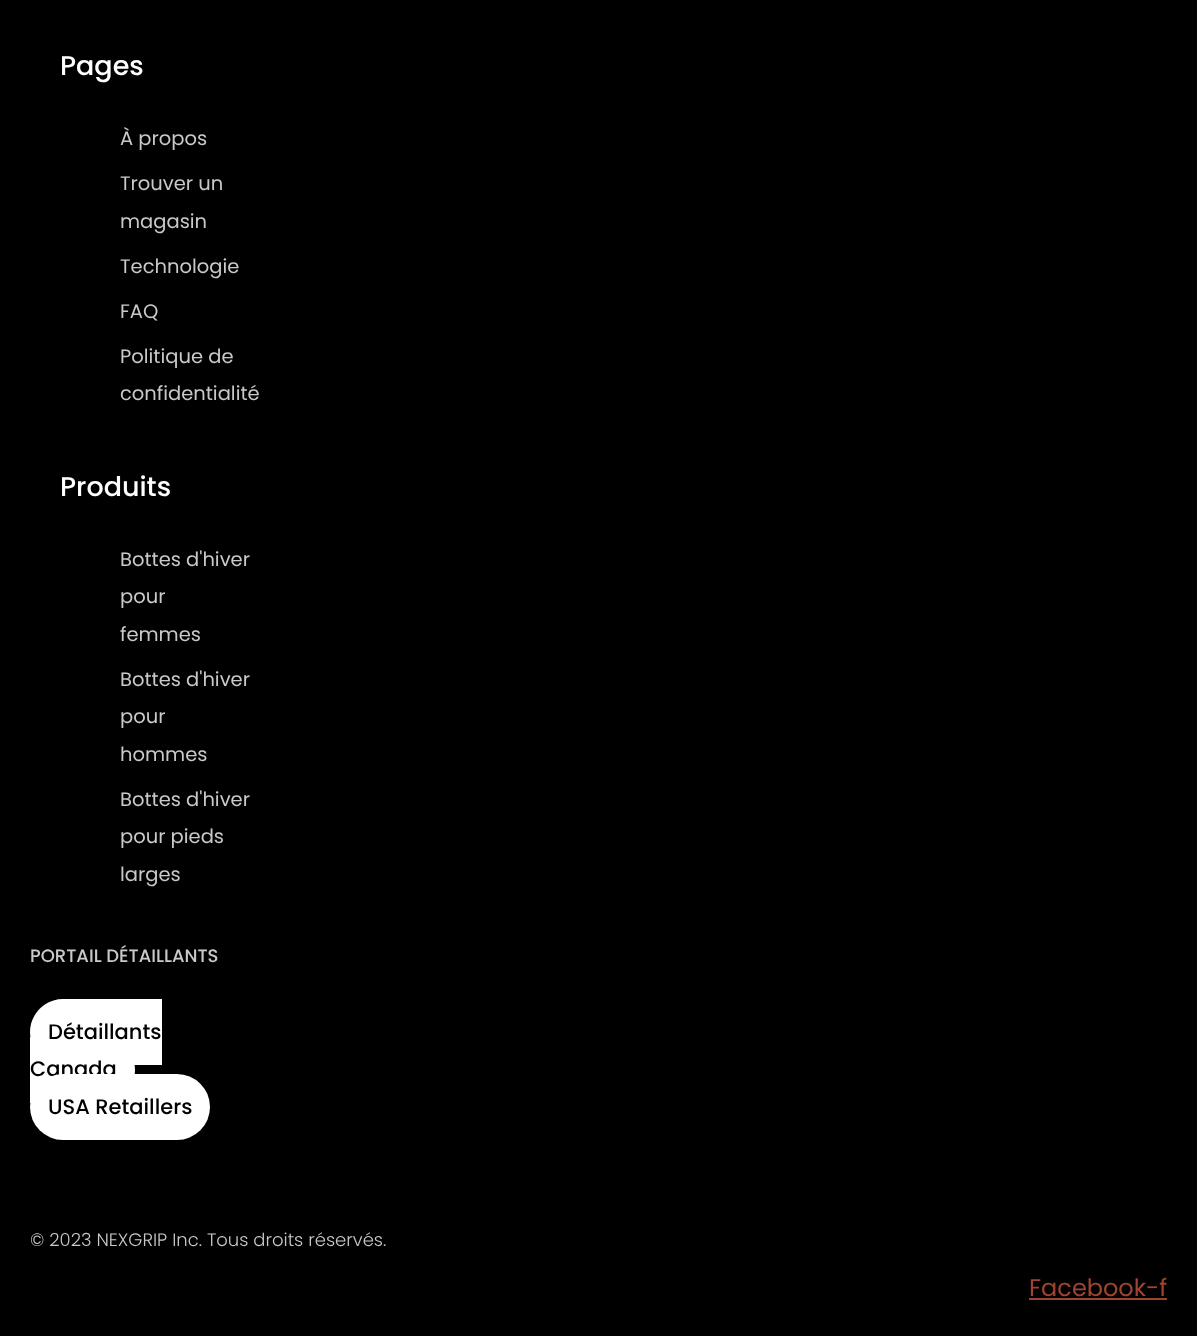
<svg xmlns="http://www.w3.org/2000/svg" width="1197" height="1336">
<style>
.a{font:500 27px Poppins;fill:#fff}
.b{font:19.5px Poppins;fill:#c9c9c9}
.c{font:500 18px Poppins;fill:#c9c9c9}
.d{font:500 21px Poppins;fill:#000}
.e{font:300 18px Poppins;fill:#c9c9c9}
.f{font:24px Poppins;fill:#9f4431}
</style>
<rect width="100%" height="100%" fill="#000"/>
<path fill="#fff" d="M63 999h99v66h-99c-18 0-33-15-33-33c0-18 15-33 33-33z"/>
<path fill="#fff" d="M30 1037h72c18 0 33 15 33 33c0 18-15 33-33 33h-72z"/>
<path fill="#9f4431" d="M1029 1298h138v2H1029z"/>
<text class="a" x="60" y="75">Pages</text>
<text class="b" x="120" y="145">À propos</text>
<text class="b" x="120" y="190">Trouver un</text>
<text class="b" x="120" y="228">magasin</text>
<text class="b" x="120" y="273">Technologie</text>
<text class="b" x="120" y="318">FAQ</text>
<text class="b" x="120" y="363">Politique de</text>
<text class="b" x="120" y="400">confidentialité</text>
<text class="a" x="60" y="496">Produits</text>
<text class="b" x="120" y="566">Bottes d'hiver</text>
<text class="b" x="120" y="603">pour</text>
<text class="b" x="120" y="641">femmes</text>
<text class="b" x="120" y="686">Bottes d'hiver</text>
<text class="b" x="120" y="723">pour</text>
<text class="b" x="120" y="761">hommes</text>
<text class="b" x="120" y="806">Bottes d'hiver</text>
<text class="b" x="120" y="843">pour pieds</text>
<text class="b" x="120" y="881">larges</text>
<text class="c" x="30" y="962">PORTAIL DÉTAILLANTS</text>
<text class="d" x="48" y="1039">Détaillants</text>
<text class="d" x="30" y="1076">Canada</text>
<rect fill="#fff" x="30" y="1074" width="180" height="66" rx="33"/>
<text class="d" x="48" y="1114">USA Retaillers</text>
<text class="e" x="30" y="1246">© 2023 NEXGRIP Inc. Tous droits réservés.</text>
<text class="f" x="1029" y="1296">Facebook-f</text>
</svg>
